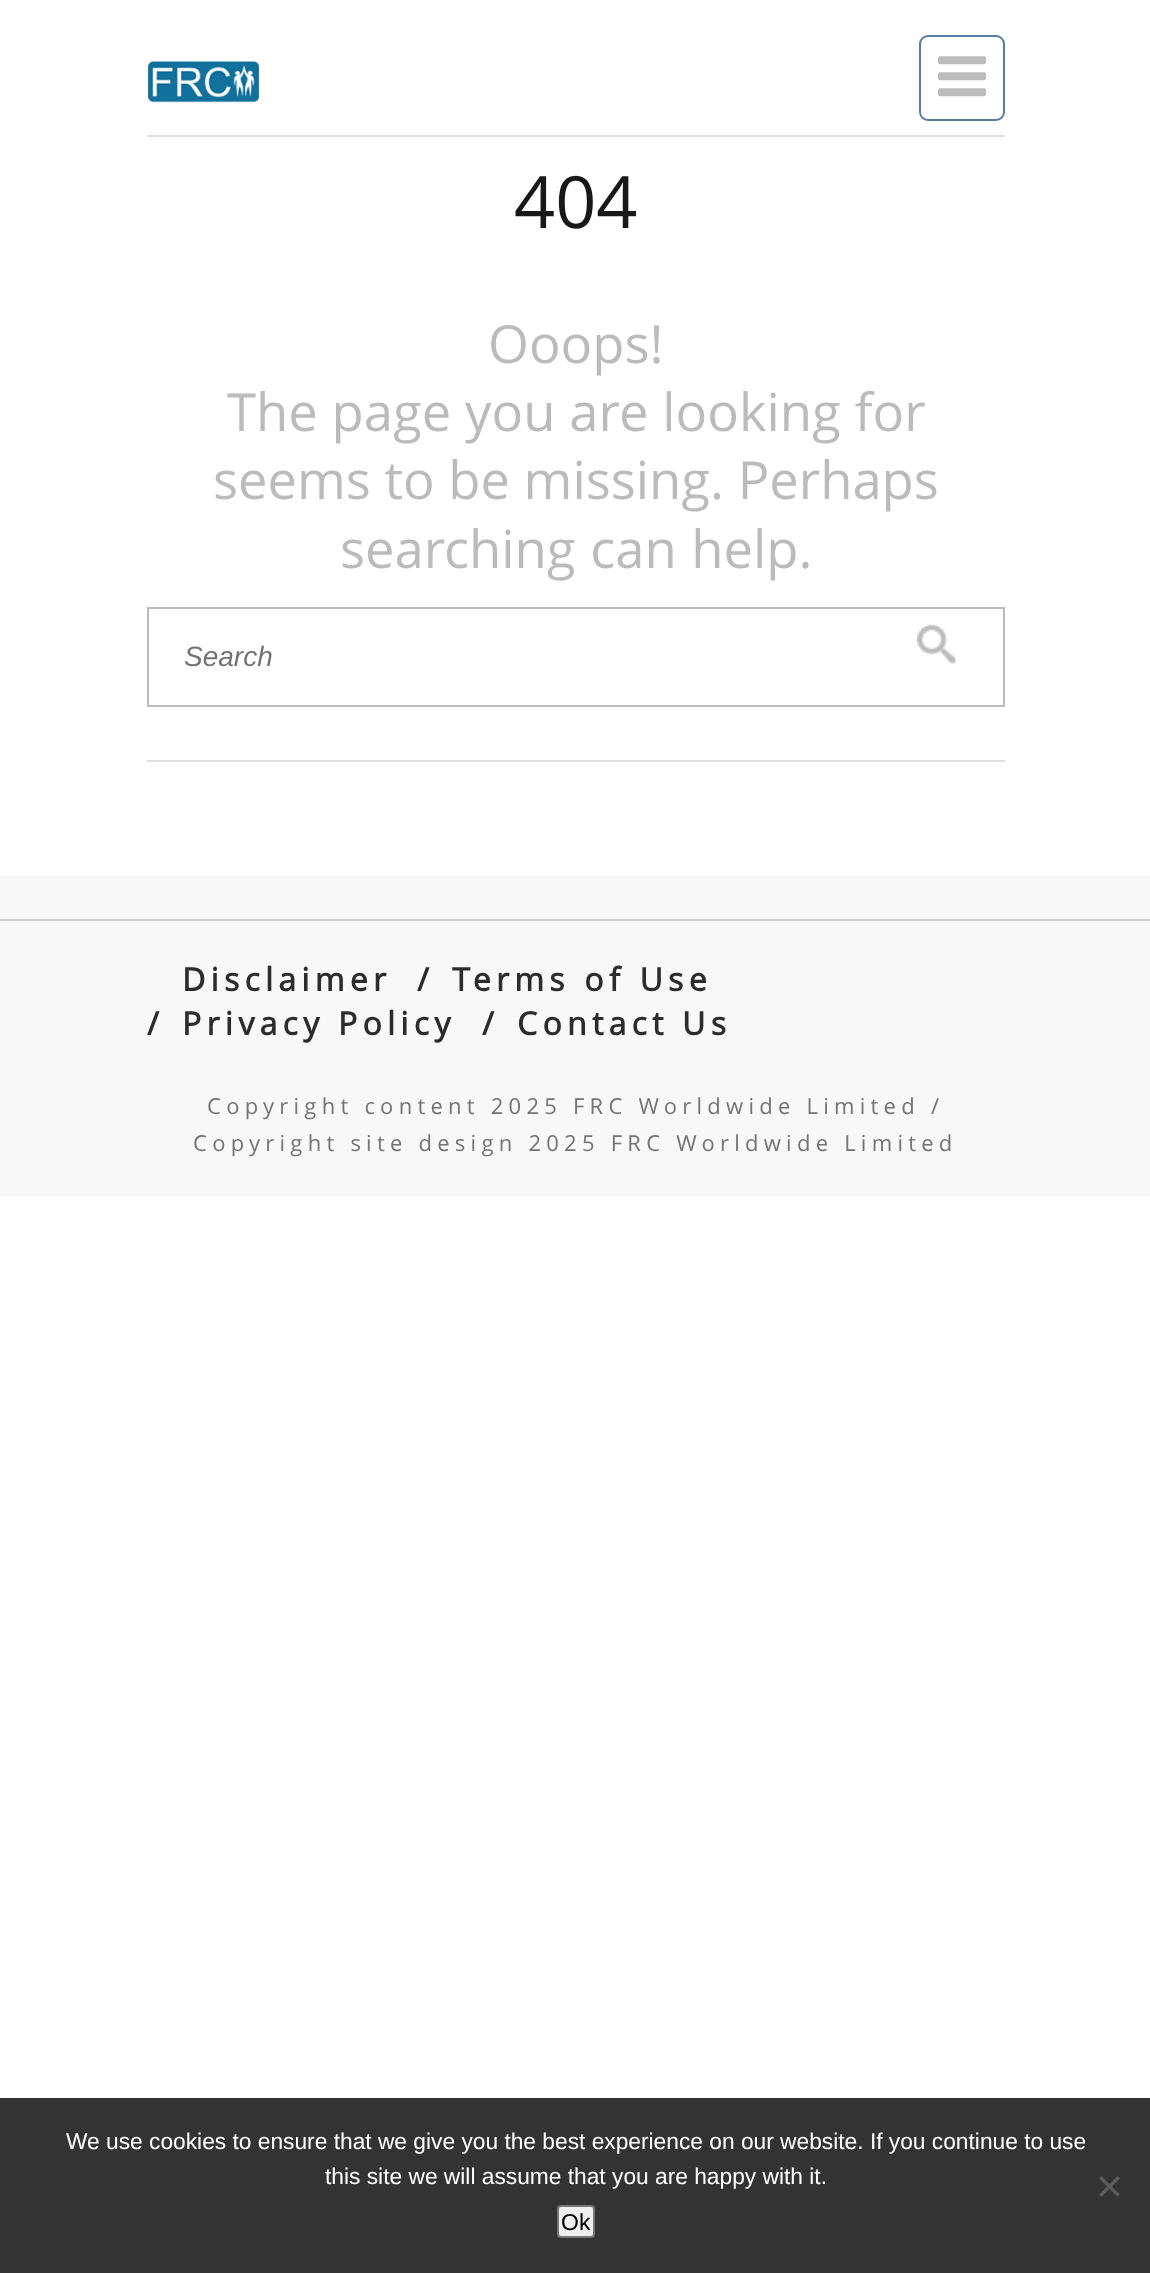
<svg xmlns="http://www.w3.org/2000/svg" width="1150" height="2273">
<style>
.a{font:72px Open Sans;fill:#181818}
.b{font:52.5px Open Sans;fill:#bbb}
.c{font:italic 28px Liberation Sans;fill:#737373}
.d{font:bold 32px Open Sans;letter-spacing:5.25px;fill:#2c2c2c}
.e{font:22px Open Sans;letter-spacing:5.25px;fill:#737373}
.f{font:22.75px Liberation Sans;fill:#fff}
.g{font:23px Liberation Sans;fill:#000}
</style>
<rect width="100%" height="100%" fill="#fff"/>
<image href="1.png" x="147" y="60" width="112" height="43"/>
<rect fill="none" stroke="#537ea2" stroke-width="2" x="920" y="36" width="84" height="84" rx="8"/>
<image href="2.png" x="938" y="56" width="48" height="41"/>
<path fill="#dfdfdf" d="M147 135h858v2H147z"/>
<path fill="#dfdfdf" d="M147 760h858v2H147z"/>
<path fill="none" stroke="#bbb" stroke-width="2" d="M148 608h856v98H148z"/>
<image href="3.png" x="917" y="624" width="39" height="40"/>
<path fill="#f8f8f8" d="M0 875h1150v322H0z"/>
<path fill="#d1d1d1" d="M0 919h1150v2H0z"/>
<path fill="#333" d="M0 2098h1150v175H0z"/>
<path fill="#5a5a5a" d="M1117.5 2176l2.5 2.5l-18.5 18.5l-2.5-2.5z"/>
<path fill="#5a5a5a" d="M1099 2178.5l2.5-2.5l18.5 18.5l-2.5 2.5z"/>
<rect fill="#efefef" stroke="#767676" stroke-width="2" x="558" y="2206" width="36" height="31" rx="3"/>
<text class="a" x="514" y="228">404</text>
<text class="b" x="488" y="363">Ooops!</text>
<text class="b" x="227" y="431" word-spacing="0.25">The page you are looking for</text>
<text class="b" x="213" y="499">seems to be missing. Perhaps</text>
<text class="b" x="340" y="568" word-spacing="1">searching can help.</text>
<text class="c" x="184" y="666">Search</text>
<text class="d" x="182" y="991">Disclaimer</text>
<text class="d" x="417" y="991">/</text>
<text class="d" x="452" y="991" word-spacing="1">Terms of Use</text>
<text class="d" x="147" y="1035">/</text>
<text class="d" x="182" y="1035">Privacy Policy</text>
<text class="d" x="482" y="1035">/</text>
<text class="d" x="517" y="1035">Contact Us</text>
<text class="e" x="207" y="1114">Copyright content 2025 FRC Worldwide Limited</text>
<text class="e" x="931" y="1114">/</text>
<text class="e" x="193" y="1151">Copyright site design 2025 FRC Worldwide Limited</text>
<text class="f" x="66" y="2149">We use cookies to ensure that we give you the best experience on our website. If you continue to use</text>
<text class="f" x="325" y="2184">this site we will assume that you are happy with it.</text>
<text class="g" x="561" y="2230">Ok</text>
</svg>
